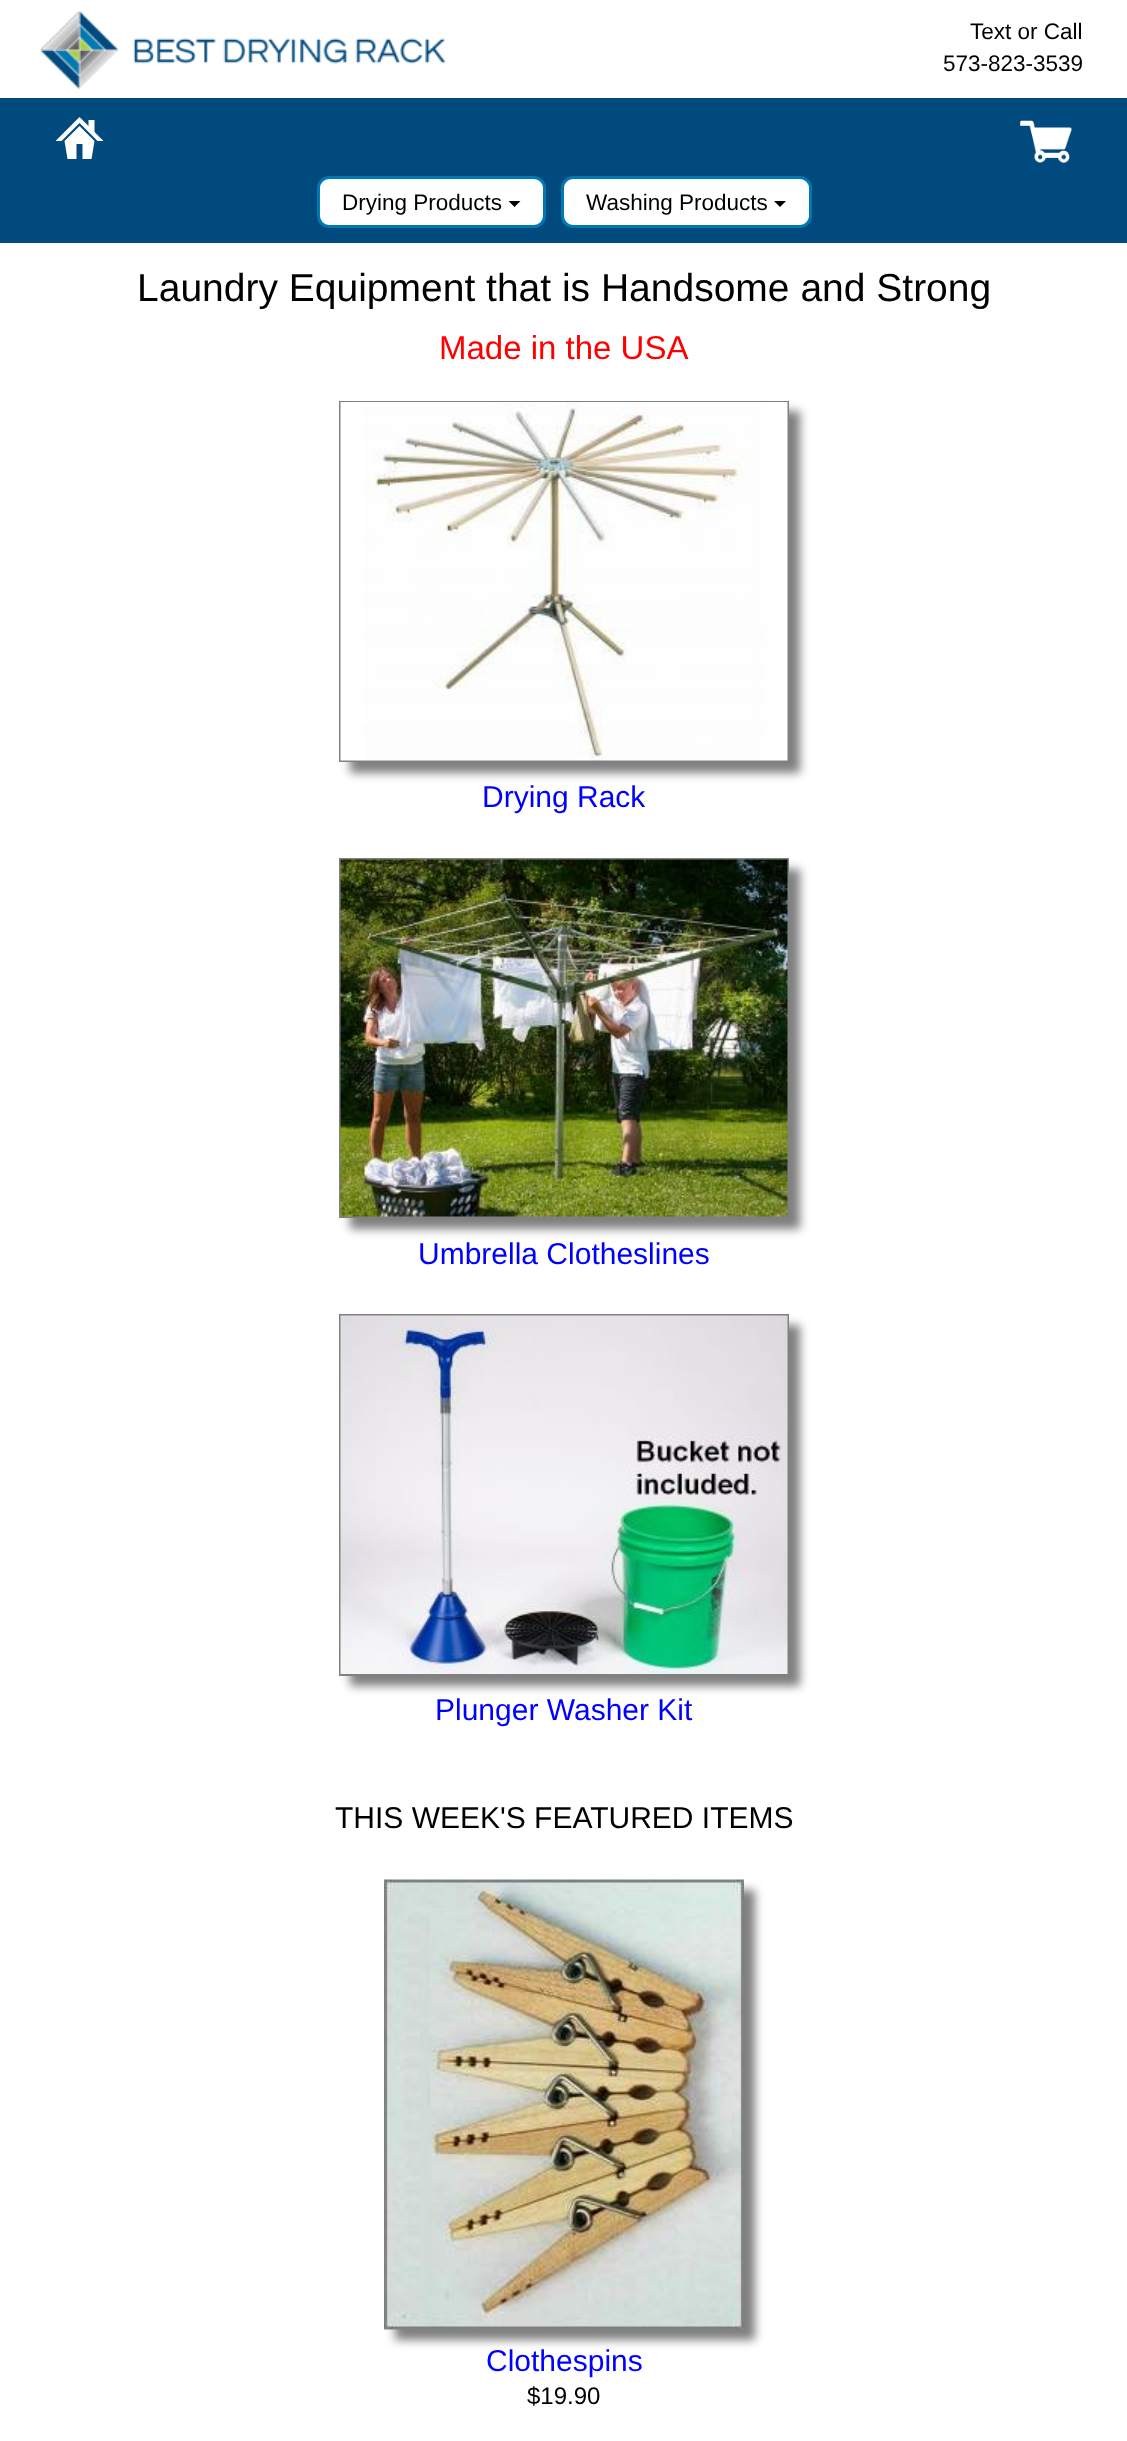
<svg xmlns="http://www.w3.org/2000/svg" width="1127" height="2441">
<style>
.a{font:22.5px Liberation Sans;fill:#000}
.b{font:39px Liberation Sans;fill:#000}
.c{font:33px Liberation Sans;fill:#f00}
.d{font:30px Liberation Sans;fill:#00f}
.e{font:30px Liberation Sans;fill:#000}
.f{font:24px Liberation Sans;fill:#000}
</style>
<rect width="100%" height="100%" fill="#fff"/>
<image href="1.png" x="40" y="10" width="405" height="79"/>
<path fill="#004a7d" d="M0 98h1127v145H0z"/>
<image href="2.png" x="56" y="117" width="48" height="42"/>
<image href="3.png" x="1020" y="120" width="52" height="43"/>
<rect fill="#fff" stroke="#0078b0" stroke-width="3" x="318.5" y="177.5" width="226" height="49" rx="10.5"/>
<path fill="#000" d="M508.5 201h12l-6 6z"/>
<rect fill="#fff" stroke="#0078b0" stroke-width="3" x="562.5" y="177.5" width="248" height="49" rx="10.5"/>
<path fill="#000" d="M774 201h12l-6 6z"/>
<path fill="#00000080" filter="blur(5px)" d="M350 411h450v362H350z"/>
<path fill="none" stroke="#808080" stroke-width="2" d="M340 402h448v359H340z"/>
<image href="4.png" x="340" y="402" width="448" height="359"/>
<path fill="#00000080" filter="blur(5px)" d="M350 869h450v360H350z"/>
<path fill="none" stroke="#808080" stroke-width="2" d="M340 859h448v358H340z"/>
<image href="5.png" x="340" y="859" width="448" height="358"/>
<path fill="#00000080" filter="blur(5px)" d="M350 1325h450v361H350z"/>
<path fill="none" stroke="#808080" stroke-width="2" d="M340 1315h448v360H340z"/>
<image href="6.png" x="340" y="1315" width="448" height="359"/>
<path fill="#00000080" filter="blur(5px)" d="M395 1890h360v450H395z"/>
<image href="7.png" x="384" y="1879" width="360" height="451"/>
<text class="a" x="970" y="39">Text or Call</text>
<text class="a" x="943" y="71">573-823-3539</text>
<text class="a" x="342" y="210">Drying Products</text>
<text class="a" x="586" y="210">Washing Products</text>
<text class="b" x="137" y="301">Laundry Equipment that is Handsome and Strong</text>
<text class="c" x="439" y="359">Made in the USA</text>
<text class="d" x="482" y="807">Drying Rack</text>
<text class="d" x="418" y="1264">Umbrella Clotheslines</text>
<text class="d" x="435" y="1720">Plunger Washer Kit</text>
<text class="e" x="335" y="1828">THIS WEEK'S FEATURED ITEMS</text>
<text class="d" x="486" y="2371">Clothespins</text>
<text class="f" x="527" y="2404">$19.90</text>
</svg>
